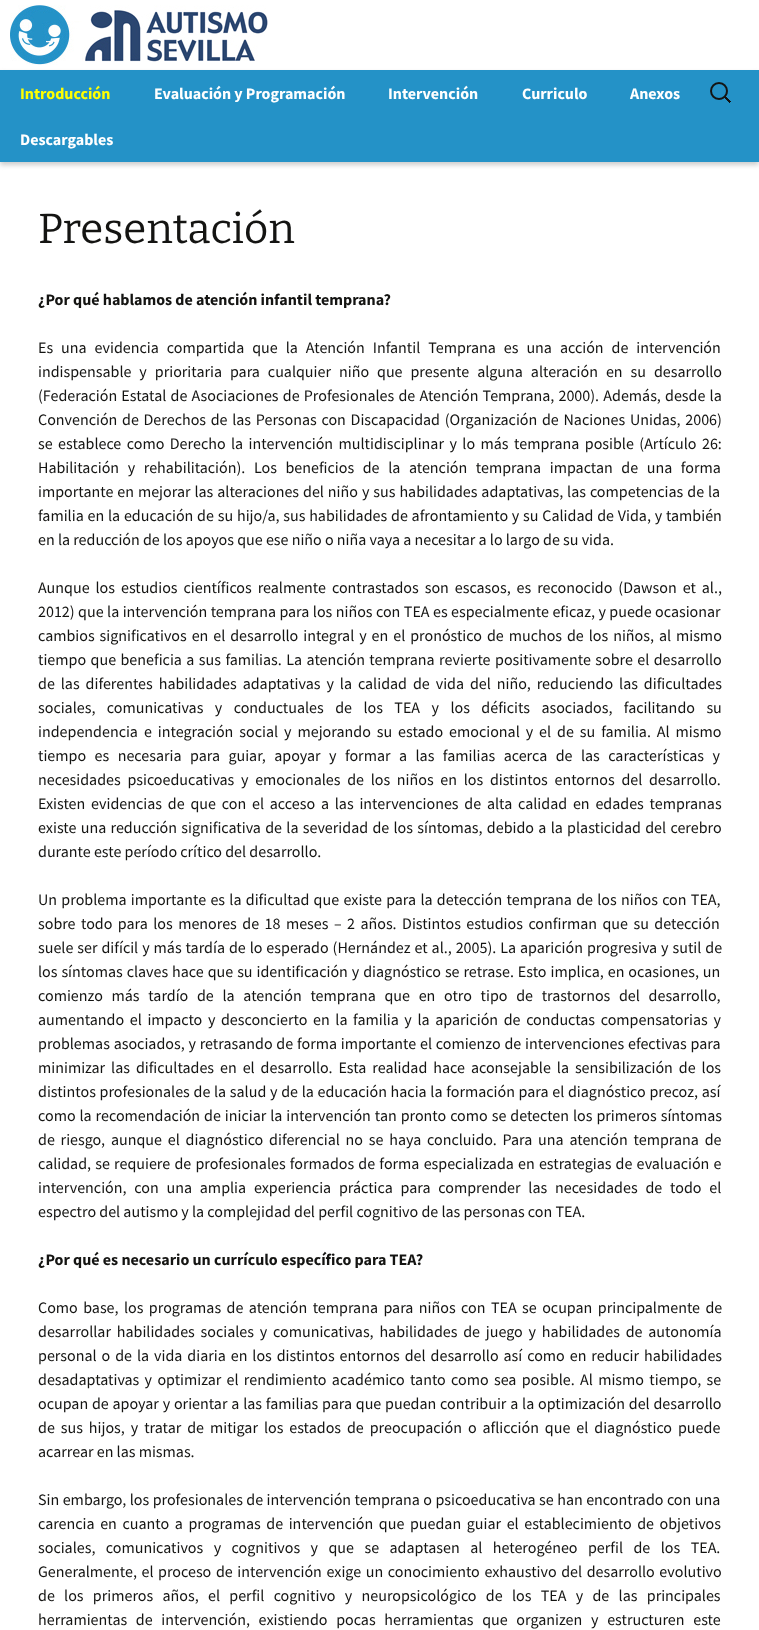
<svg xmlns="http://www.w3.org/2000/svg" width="759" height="1630">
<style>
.a{font:bold 16px Source Sans Pro;fill:#ff0}
.b{font:bold 16px Source Sans Pro;fill:#fff}
.c{font:42px Bitter;fill:#141412}
.d{font:bold 16px Source Sans Pro;fill:#141412}
.e{font:16px Source Sans Pro;fill:#141412}
</style>
<defs>
<clipPath id="clip1"><path d="M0 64h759v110h-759zm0 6h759v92h-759z" clip-rule="evenodd"/></clipPath>
</defs>
<rect width="100%" height="100%" fill="#fff"/>
<image href="1.png" x="10" y="5" width="258" height="60"/>
<path fill="#2492c7" d="M0 70h759v92H0z"/>
<g clip-path="url(#clip1)">
<path fill="#ccc" filter="blur(2.5px)" d="M0 73h759v92H0z"/>
</g>
<image href="2.png" x="710" y="82" width="21" height="21"/>
<text class="a" x="20" y="99">Introducción</text>
<text class="b" x="154" y="99">Evaluación y Programación</text>
<text class="b" x="388" y="99">Intervención</text>
<text class="b" x="522" y="99">Curriculo</text>
<text class="b" x="630" y="99">Anexos</text>
<text class="b" x="20" y="145">Descargables</text>
<text class="c" x="38" y="243">Presentación</text>
<text class="d" x="38" y="305">¿Por qué hablamos de atención infantil temprana?</text>
<text class="e" x="38" y="353" word-spacing="4.75">Es una evidencia compartida que la Atención Infantil Temprana es una acción de intervención</text>
<text class="e" x="38" y="377" word-spacing="4.75">indispensable y prioritaria para cualquier niño que presente alguna alteración en su desarrollo</text>
<text class="e" x="38" y="401" word-spacing="1">(Federación Estatal de Asociaciones de Profesionales de Atención Temprana, 2000). Además, desde la</text>
<text class="e" x="38" y="425" word-spacing="1.5">Convención de Derechos de las Personas con Discapacidad (Organización de Naciones Unidas, 2006)</text>
<text class="e" x="38" y="449" word-spacing="2.25">se establece como Derecho la intervención multidisciplinar y lo más temprana posible (Artículo 26:</text>
<text class="e" x="38" y="473" word-spacing="5.4">Habilitación y rehabilitación). Los beneficios de la atención temprana impactan de una forma</text>
<text class="e" x="38" y="497" word-spacing="0.75">importante en mejorar las alteraciones del niño y sus habilidades adaptativas, las competencias de la</text>
<text class="e" x="38" y="521" word-spacing="0.6">familia en la educación de su hijo/a, sus habilidades de afrontamiento y su Calidad de Vida, y también</text>
<text class="e" x="38" y="545">en la reducción de los apoyos que ese niño o niña vaya a necesitar a lo largo de su vida.</text>
<text class="e" x="38" y="593" word-spacing="2.75">Aunque los estudios científicos realmente contrastados son escasos, es reconocido (Dawson et al.,</text>
<text class="e" x="38" y="617" word-spacing="0.25">2012) que la intervención temprana para los niños con TEA es especialmente eficaz, y puede ocasionar</text>
<text class="e" x="38" y="641" word-spacing="1.75">cambios significativos en el desarrollo integral y en el pronóstico de muchos de los niños, al mismo</text>
<text class="e" x="38" y="665" word-spacing="1.25">tiempo que beneficia a sus familias. La atención temprana revierte positivamente sobre el desarrollo</text>
<text class="e" x="38" y="689" word-spacing="2.75">de las diferentes habilidades adaptativas y la calidad de vida del niño, reduciendo las dificultades</text>
<text class="e" x="38" y="713" word-spacing="8.25">sociales, comunicativas y conductuales de los TEA y los déficits asociados, facilitando su</text>
<text class="e" x="38" y="737" word-spacing="2.75">independencia e integración social y mejorando su estado emocional y el de su familia. Al mismo</text>
<text class="e" x="38" y="761" word-spacing="5.25">tiempo es necesaria para guiar, apoyar y formar a las familias acerca de las características y</text>
<text class="e" x="38" y="785" word-spacing="3.5">necesidades psicoeducativas y emocionales de los niños en los distintos entornos del desarrollo.</text>
<text class="e" x="38" y="809" word-spacing="2.6">Existen evidencias de que con el acceso a las intervenciones de alta calidad en edades tempranas</text>
<text class="e" x="38" y="833" word-spacing="1.1">existe una reducción significativa de la severidad de los síntomas, debido a la plasticidad del cerebro</text>
<text class="e" x="38" y="857">durante este período crítico del desarrollo.</text>
<text class="e" x="38" y="905" word-spacing="1.1">Un problema importante es la dificultad que existe para la detección temprana de los niños con TEA,</text>
<text class="e" x="38" y="929" word-spacing="2.25">sobre todo para los menores de 18 meses – 2 años. Distintos estudios confirman que su detección</text>
<text class="e" x="38" y="953" word-spacing="0.75">suele ser difícil y más tardía de lo esperado (Hernández et al., 2005). La aparición progresiva y sutil de</text>
<text class="e" x="38" y="977" word-spacing="0.75">los síntomas claves hace que su identificación y diagnóstico se retrase. Esto implica, en ocasiones, un</text>
<text class="e" x="38" y="1001" word-spacing="5.5">comienzo más tardío de la atención temprana que en otro tipo de trastornos del desarrollo,</text>
<text class="e" x="38" y="1025" word-spacing="2.4">aumentando el impacto y desconcierto en la familia y la aparición de conductas compensatorias y</text>
<text class="e" x="38" y="1049" word-spacing="0.6">problemas asociados, y retrasando de forma importante el comienzo de intervenciones efectivas para</text>
<text class="e" x="38" y="1073" word-spacing="2.75">minimizar las dificultades en el desarrollo. Esta realidad hace aconsejable la sensibilización de los</text>
<text class="e" x="38" y="1097" word-spacing="0.5">distintos profesionales de la salud y de la educación hacia la formación para el diagnóstico precoz, así</text>
<text class="e" x="38" y="1121" word-spacing="0.75">como la recomendación de iniciar la intervención tan pronto como se detecten los primeros síntomas</text>
<text class="e" x="38" y="1145" word-spacing="2.6">de riesgo, aunque el diagnóstico diferencial no se haya concluido. Para una atención temprana de</text>
<text class="e" x="38" y="1169" word-spacing="1">calidad, se requiere de profesionales formados de forma especializada en estrategias de evaluación e</text>
<text class="e" x="38" y="1193" word-spacing="4.6">intervención, con una amplia experiencia práctica para comprender las necesidades de todo el</text>
<text class="e" x="38" y="1217">espectro del autismo y la complejidad del perfil cognitivo de las personas con TEA.</text>
<text class="d" x="38" y="1265">¿Por qué es necesario un currículo específico para TEA?</text>
<text class="e" x="38" y="1313" word-spacing="2.25">Como base, los programas de atención temprana para niños con TEA se ocupan principalmente de</text>
<text class="e" x="38" y="1337" word-spacing="2.6">desarrollar habilidades sociales y comunicativas, habilidades de juego y habilidades de autonomía</text>
<text class="e" x="38" y="1361" word-spacing="1.75">personal o de la vida diaria en los distintos entornos del desarrollo así como en reducir habilidades</text>
<text class="e" x="38" y="1385" word-spacing="2.1">desadaptativas y optimizar el rendimiento académico tanto como sea posible. Al mismo tiempo, se</text>
<text class="e" x="38" y="1409" word-spacing="0.6">ocupan de apoyar y orientar a las familias para que puedan contribuir a la optimización del desarrollo</text>
<text class="e" x="38" y="1433" word-spacing="2.75">de sus hijos, y tratar de mitigar los estados de preocupación o aflicción que el diagnóstico puede</text>
<text class="e" x="38" y="1457">acarrear en las mismas.</text>
<text class="e" x="38" y="1505" word-spacing="0.25">Sin embargo, los profesionales de intervención temprana o psicoeducativa se han encontrado con una</text>
<text class="e" x="38" y="1529" word-spacing="2.4">carencia en cuanto a programas de intervención que puedan guiar el establecimiento de objetivos</text>
<text class="e" x="38" y="1553" word-spacing="7.25">sociales, comunicativos y cognitivos y que se adaptasen al heterogéneo perfil de los TEA.</text>
<text class="e" x="38" y="1577" word-spacing="1.4">Generalmente, el proceso de intervención exige un conocimiento exhaustivo del desarrollo evolutivo</text>
<text class="e" x="38" y="1601" word-spacing="6.1">de los primeros años, el perfil cognitivo y neuropsicológico de los TEA y de las principales</text>
<text class="e" x="38" y="1625" word-spacing="5.5">herramientas de intervención, existiendo pocas herramientas que organizen y estructuren este</text>
</svg>
